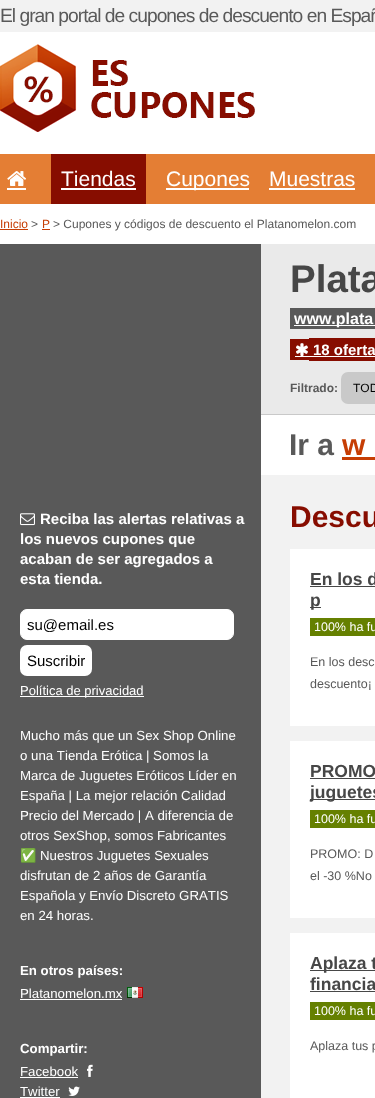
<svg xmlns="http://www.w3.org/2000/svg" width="375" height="1098">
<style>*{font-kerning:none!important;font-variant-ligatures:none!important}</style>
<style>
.a{font:19.25px Liberation Sans;letter-spacing:-1px;fill:#595959}
.b{font:21px Liberation Sans;fill:#fff}
.c{font:12px Liberation Sans;fill:#c63e05}
.d{font:12px Liberation Sans;fill:#595959}
.e{font:bold 38.5px Liberation Sans;fill:#474747}
.f{font:bold 16px Liberation Sans;fill:#fff}
.g{font:bold 15px Liberation Sans;fill:#fff}
.h{font:bold 12px Liberation Sans;fill:#595959}
.i{font:12px Liberation Sans;fill:#000}
.j{font:bold 30px Liberation Sans;fill:#595959}
.k{font:bold 30px Liberation Sans;fill:#c63e05}
.l{font:15px Liberation Sans;fill:#000}
.m{font:13px Liberation Sans;fill:#fff}
.n{font:13.25px Liberation Sans;fill:#fff}
.o{font:13.25px Noto Color Emoji;fill:#fff}
.p{font:bold 13.25px Liberation Sans;fill:#fff}
.q{font:bold 30px Liberation Sans;fill:#870d00}
.r{font:bold 17.5px Liberation Sans;fill:#474747}
.s{font:12.5px Liberation Sans;fill:#fff}
.t{font:12.5px Liberation Sans;fill:#595959}
</style>
<rect width="100%" height="100%" fill="#f2f2f2"/>
<path fill="#fff" d="M0 32h375v122H0z"/>
<image href="1.png" x="0" y="44" width="255" height="88"/>
<path fill="#e47e34" d="M0 154h375v50H0z"/>
<image href="2.png" x="7" y="171" width="19" height="15"/>
<path fill="#fff" d="M7 188h19v2H7z"/>
<path fill="#870d00" d="M51 154h95v50H51z"/>
<path fill="#fff" d="M61 188h75v2H61z"/>
<path fill="#fff" d="M166 188h83v2H166z"/>
<path fill="#fff" d="M269 188h86v2H269z"/>
<path fill="#fff" d="M0 204h375v40H0z"/>
<path fill="#c63e05" d="M0 229h28v1H0z"/>
<path fill="#c63e05" d="M42 229h8v1H42z"/>
<path fill="#eaeaea" d="M261 244h114v170H261z"/>
<path fill="#c9c9c9" d="M261 414h114v1H261z"/>
<path fill="#595959" d="M290 308h85v21H290z"/>
<path fill="#fff" d="M294 325h81v1H294z"/>
<path fill="#870d00" d="M290 339h19v21H290z"/>
<image href="3.png" x="296" y="343" width="12" height="13"/>
<path fill="#870d00" d="M309 338h66v23H309z"/>
<path fill="#fff" d="M295 356h80v1H295z"/>
<rect fill="#c9c9c9" x="341" y="372" width="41" height="32" rx="7"/>
<path fill="#fff" d="M261 415h114v60H261z"/>
<path fill="#595959" d="M0 244h261v854H0z"/>
<path fill="#c63e05" d="M342 457h33v3H342z"/>
<image href="4.png" x="20" y="513" width="15" height="13"/>
<rect fill="#fff" stroke="#fff" x="20.5" y="609.5" width="213" height="30" rx="6.5"/>
<rect fill="#fff" x="20" y="645" width="72" height="31" rx="7"/>
<path fill="#fff" d="M20 696h124v1H20z"/>
<path fill="#fff" d="M20 999h102v1H20z"/>
<image href="5.png" x="127" y="987" width="16" height="11"/>
<path fill="#fff" d="M20 1077h58v1H20z"/>
<image href="6.png" x="87" y="1064" width="6" height="13"/>
<path fill="#fff" d="M20 1097h40v1H20z"/>
<image href="7.png" x="68" y="1086" width="12" height="10"/>
<path fill="#fff" d="M290 549h85v177H290z"/>
<path fill="#474747" d="M310 586h65v1H310z"/>
<path fill="#474747" d="M310 607h11v1H310z"/>
<path fill="#658000" d="M310 618h65v18H310z"/>
<path fill="#fff" d="M290 741h85v177H290z"/>
<path fill="#474747" d="M310 778h65v1H310z"/>
<path fill="#474747" d="M310 799h65v1H310z"/>
<path fill="#658000" d="M310 810h65v18H310z"/>
<path fill="#fff" d="M290 933h85v165H290z"/>
<path fill="#474747" d="M310 970h65v1H310z"/>
<path fill="#474747" d="M310 991h65v1H310z"/>
<path fill="#658000" d="M310 1002h65v18H310z"/>
<text class="a" x="0" y="22">El gran portal de cupones de descuento en Españ</text>
<text class="b" x="61" y="186">Tiendas</text>
<text class="b" x="166" y="186">Cupones</text>
<text class="b" x="269" y="186">Muestras</text>
<text class="c" x="0" y="228">Inicio</text>
<text class="d" x="31" y="228">&gt;</text>
<text class="c" x="42" y="228">P</text>
<text class="d" x="53" y="228">&gt; Cupones y códigos de descuento el Platanomelon.com</text>
<text class="e" x="290" y="292">Plata</text>
<text class="f" x="294" y="324">www.plata</text>
<text class="g" x="313" y="355">18 oferta</text>
<text class="h" x="290" y="392">Filtrado:</text>
<text class="i" x="353" y="392">TOD</text>
<text class="j" x="289" y="455">Ir a</text>
<text class="k" x="342" y="455">w</text>
<text class="g" x="40" y="524">Reciba las alertas relativas a</text>
<text class="g" x="20" y="544">los nuevos cupones que</text>
<text class="g" x="20" y="564">acaban de ser agregados a</text>
<text class="g" x="20" y="584">esta tienda.</text>
<text class="l" x="27" y="630">su@email.es</text>
<text class="l" x="27" y="666">Suscribir</text>
<text class="m" x="20" y="695">Política de privacidad</text>
<text class="n" x="20" y="740">Mucho más que un Sex Shop Online</text>
<text class="n" x="20" y="760">o una Tienda Erótica | Somos la</text>
<text class="n" x="20" y="780">Marca de Juguetes Eróticos Líder en</text>
<text class="n" x="20" y="800">España | La mejor relación Calidad</text>
<text class="n" x="20" y="820">Precio del Mercado | A diferencia de</text>
<text class="n" x="20" y="840">otros SexShop, somos Fabricantes</text>
<text class="o" x="20" y="860">✅</text>
<text class="n" x="40" y="860">Nuestros Juguetes Sexuales</text>
<text class="n" x="20" y="880">disfrutan de 2 años de Garantía</text>
<text class="n" x="20" y="900">Española y Envío Discreto GRATIS</text>
<text class="n" x="20" y="920">en 24 horas.</text>
<text class="p" x="20" y="975">En otros países:</text>
<text class="n" x="20" y="998">Platanomelon.mx</text>
<text class="p" x="20" y="1053">Compartir:</text>
<text class="n" x="20" y="1076">Facebook</text>
<text class="n" x="20" y="1096">Twitter</text>
<text class="q" x="290" y="527">Descu</text>
<text class="r" x="310" y="585">En los d</text>
<text class="r" x="310" y="606">p</text>
<text class="s" x="314" y="631">100% ha fu</text>
<text class="t" x="310" y="666">En los desc</text>
<text class="t" x="310" y="688">descuento¡</text>
<text class="r" x="310" y="777">PROMO</text>
<text class="r" x="310" y="798">juguetes</text>
<text class="s" x="314" y="823">100% ha fu</text>
<text class="t" x="310" y="858">PROMO: D</text>
<text class="t" x="310" y="880">el -30 %No</text>
<text class="r" x="310" y="969">Aplaza t</text>
<text class="r" x="310" y="990">financia</text>
<text class="s" x="314" y="1015">100% ha fu</text>
<text class="t" x="310" y="1050">Aplaza tus p</text>
</svg>
